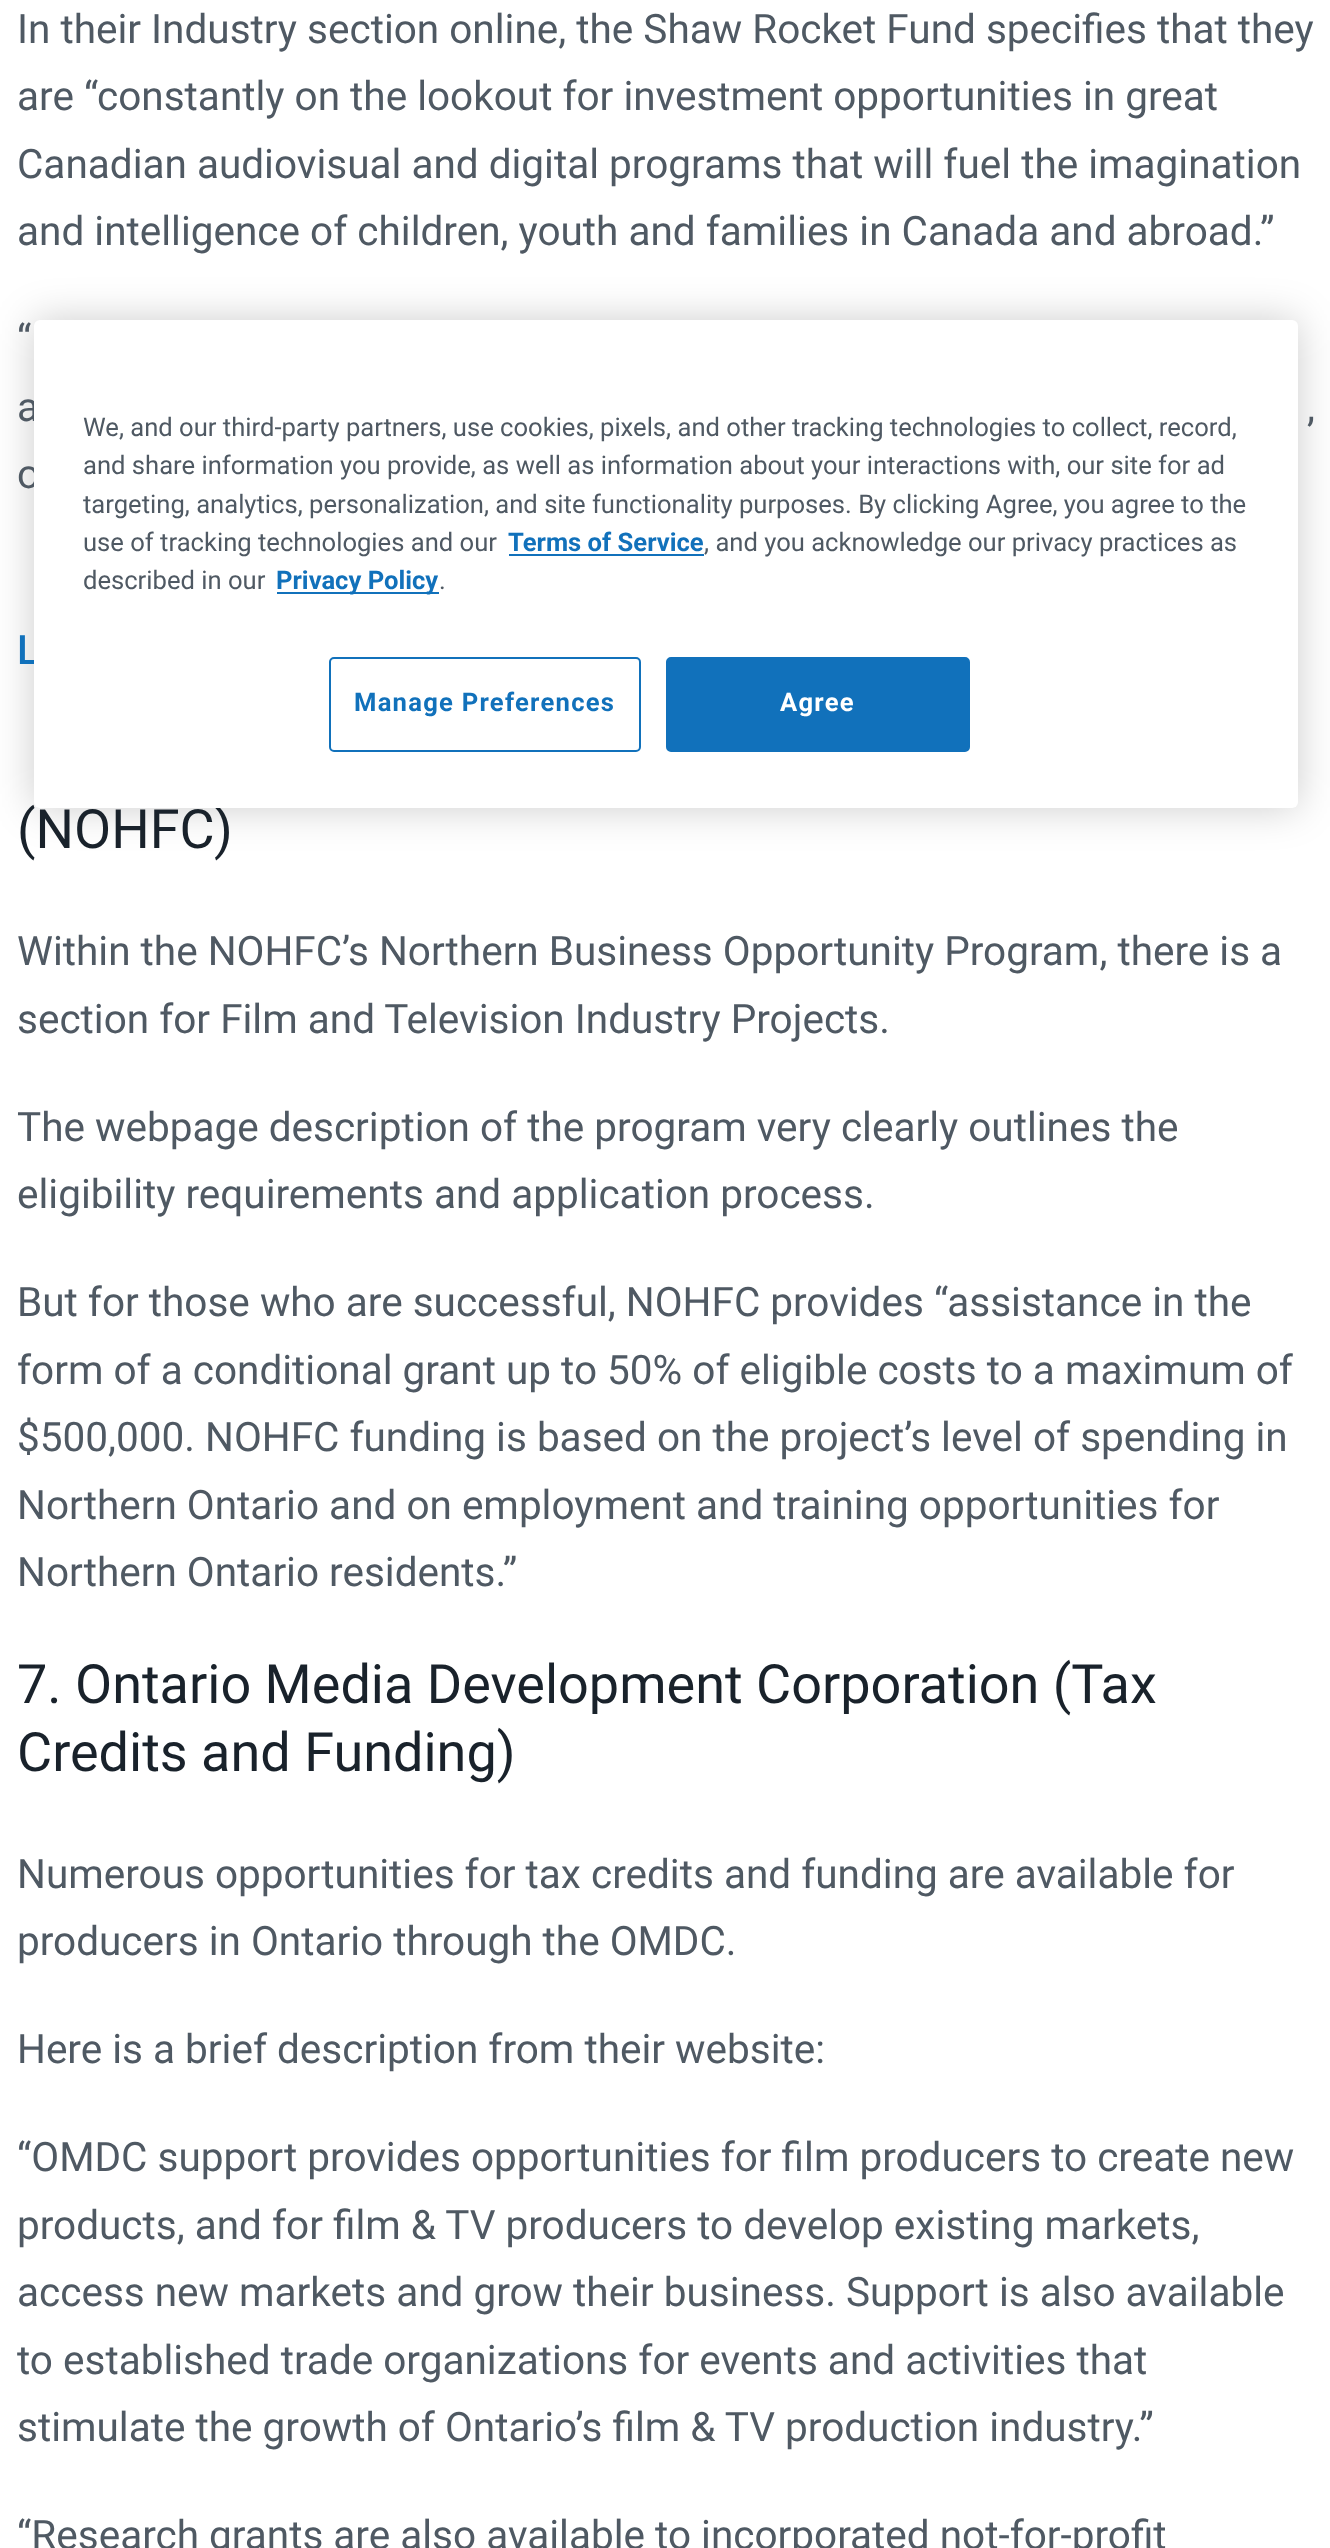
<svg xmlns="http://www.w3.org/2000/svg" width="1330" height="2548">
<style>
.a{font:40.5px Roboto;fill:#4f5963}
.b{font:500 40.5px Roboto;fill:#1171bb}
.c{font:54px Roboto;fill:#19222b}
.d{font:25.6px Roboto;fill:#4f5963}
.e{font:bold 25.6px Roboto;fill:#1171bb}
.f{font:bold 25.6px Roboto;letter-spacing:1.25px;fill:#1171bb}
.g{font:bold 25.6px Roboto;letter-spacing:1.25px;fill:#fff}
</style>
<rect width="100%" height="100%" fill="#fff"/>
<rect fill="#00000033" filter="blur(20px)" x="34" y="320" width="1264" height="488" rx="6"/>
<text class="a" x="17" y="43">In their Industry section online, the Shaw Rocket Fund specifies that they</text>
<text class="a" x="17" y="110">are “constantly on the lookout for investment opportunities in great</text>
<text class="a" x="17" y="178">Canadian audiovisual and digital programs that will fuel the imagination</text>
<text class="a" x="17" y="245">and intelligence of children, youth and families in Canada and abroad.”</text>
<text class="a" x="17" y="353">“</text>
<text class="a" x="17" y="421">a</text>
<text class="a" x="1307" y="421">,</text>
<text class="a" x="17" y="488">o</text>
<text class="b" x="17" y="664">L</text>
<text class="c" x="17" y="848">(NOHFC)</text>
<text class="a" x="17" y="965">Within the NOHFC’s Northern Business Opportunity Program, there is a</text>
<text class="a" x="17" y="1033">section for Film and Television Industry Projects.</text>
<text class="a" x="17" y="1141">The webpage description of the program very clearly outlines the</text>
<text class="a" x="17" y="1208">eligibility requirements and application process.</text>
<text class="a" x="17" y="1316">But for those who are successful, NOHFC provides “assistance in the</text>
<text class="a" x="17" y="1384">form of a conditional grant up to 50% of eligible costs to a maximum of</text>
<text class="a" x="17" y="1451">$500,000. NOHFC funding is based on the project’s level of spending in</text>
<text class="a" x="17" y="1519">Northern Ontario and on employment and training opportunities for</text>
<text class="a" x="17" y="1586">Northern Ontario residents.”</text>
<text class="c" x="17" y="1703">7. Ontario Media Development Corporation (Tax</text>
<text class="c" x="17" y="1771">Credits and Funding)</text>
<text class="a" x="17" y="1888">Numerous opportunities for tax credits and funding are available for</text>
<text class="a" x="17" y="1955">producers in Ontario through the OMDC.</text>
<text class="a" x="17" y="2063">Here is a brief description from their website:</text>
<text class="a" x="17" y="2171">“OMDC support provides opportunities for film producers to create new</text>
<text class="a" x="17" y="2239">products, and for film &amp; TV producers to develop existing markets,</text>
<text class="a" x="17" y="2306">access new markets and grow their business. Support is also available</text>
<text class="a" x="17" y="2374">to established trade organizations for events and activities that</text>
<text class="a" x="17" y="2441">stimulate the growth of Ontario’s film &amp; TV production industry.”</text>
<text class="a" x="17" y="2549">“Research grants are also available to incorporated not-for-profit</text>
<rect fill="#fff" x="34" y="320" width="1264" height="488" rx="6"/>
<text class="d" x="83" y="436">We, and our third-party partners, use cookies, pixels, and other tracking technologies to collect, record,</text>
<text class="d" x="83" y="474">and share information you provide, as well as information about your interactions with, our site for ad</text>
<text class="d" x="83" y="513">targeting, analytics, personalization, and site functionality purposes. By clicking Agree, you agree to the</text>
<text class="d" x="83" y="551">use of tracking technologies and our</text>
<text class="e" x="508" y="551">Terms of Service</text>
<path fill="#1171bb" d="M509 554h195v2H509z"/>
<text class="d" x="704" y="551">, and you acknowledge our privacy practices as</text>
<text class="d" x="83" y="589">described in our</text>
<path fill="#1171bb" d="M277 592h162v2H277z"/>
<text class="e" x="276" y="589">Privacy Policy</text>
<text class="d" x="439" y="589">.</text>
<rect fill="none" stroke="#1171bb" stroke-width="2" x="330" y="658" width="310" height="93" rx="4"/>
<text class="f" x="354" y="711">Manage Preferences</text>
<rect fill="#1171bb" stroke="#1171bb" stroke-width="2" x="667" y="658" width="302" height="93" rx="4"/>
<text class="g" x="780" y="711">Agree</text>
</svg>
